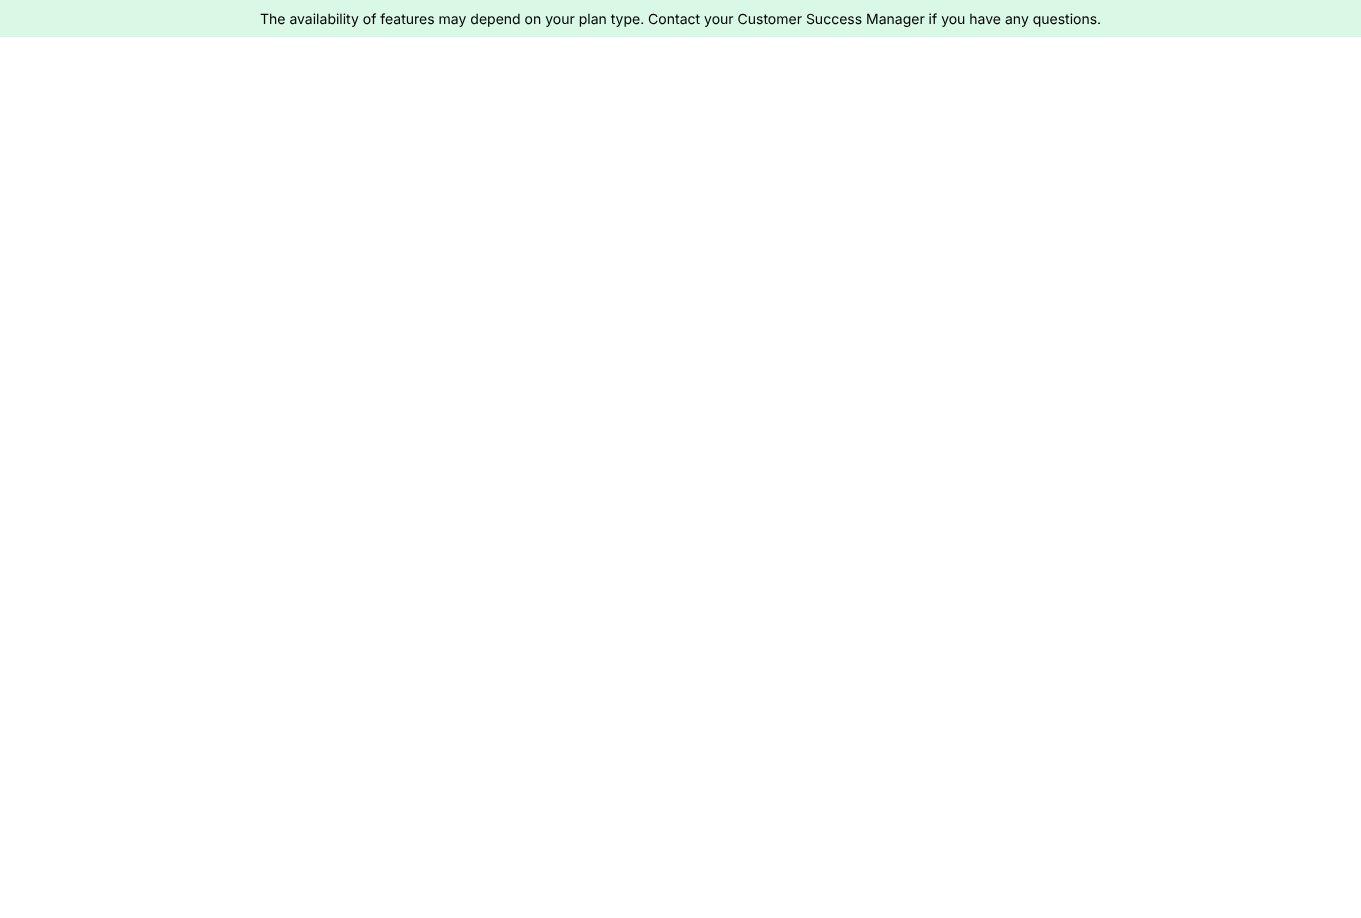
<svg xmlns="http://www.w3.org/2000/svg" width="1361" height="918">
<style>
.a{font:14px Inter;fill:#000}
</style>
<rect width="100%" height="100%" fill="#fff"/>
<path fill="#d9f9e6" d="M0 0h1361v37H0z"/>
<text class="a" x="260" y="24">The availability of features may depend on your plan type. Contact your Customer Success Manager if you have any questions.</text>
</svg>
